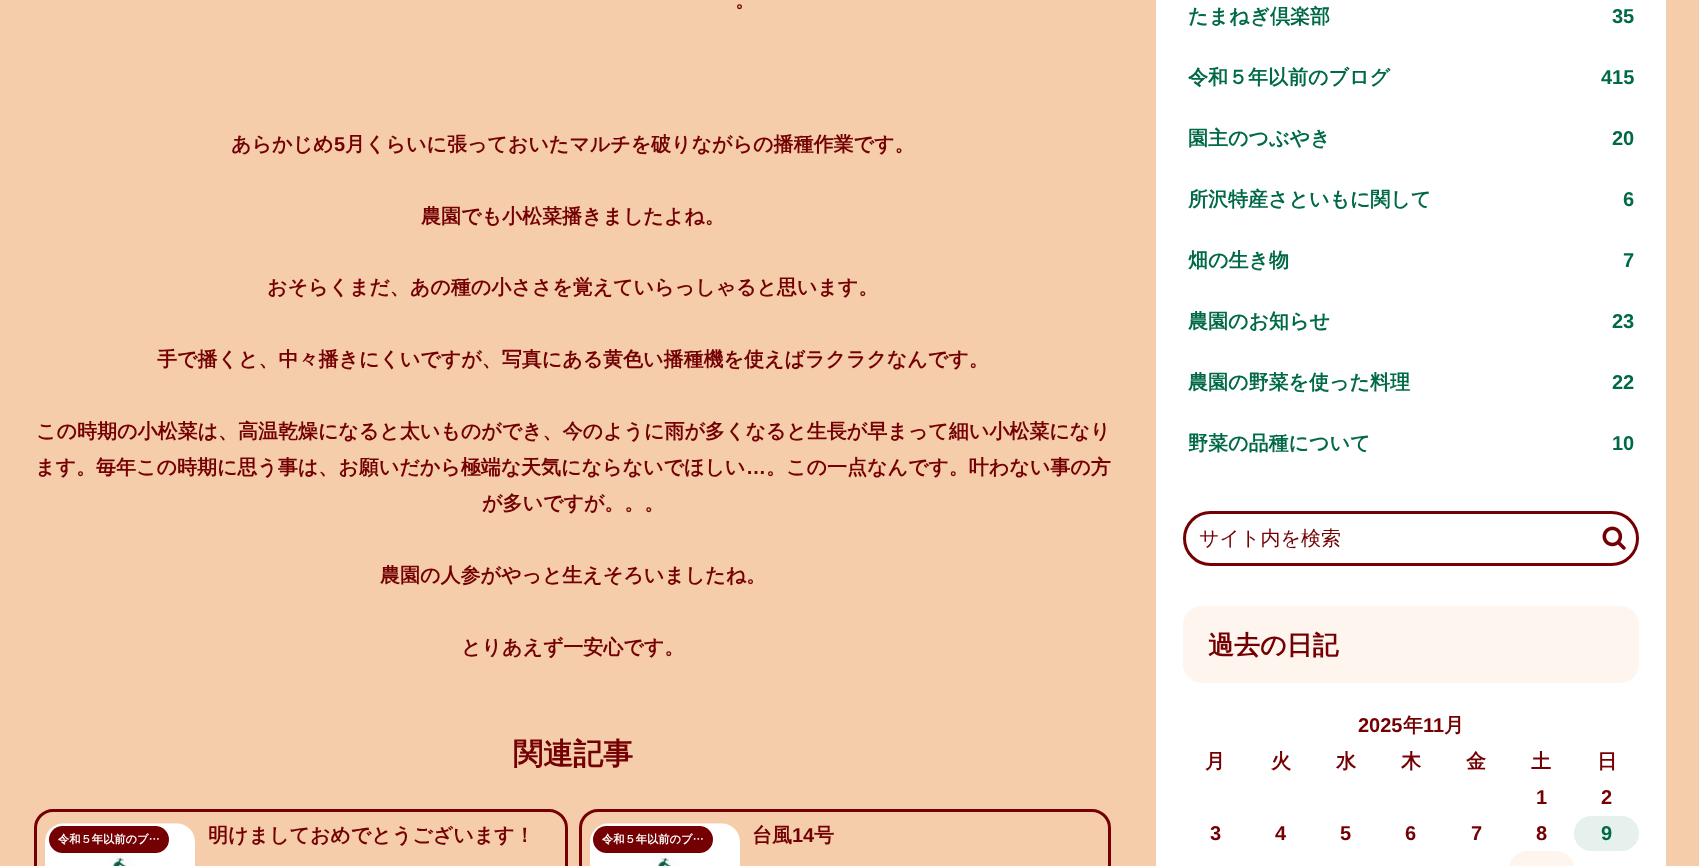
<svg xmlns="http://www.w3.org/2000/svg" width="1699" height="866">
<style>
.a{font:bold 20px WenQuanYi Zen Hei;fill:#740003}
.b{font:bold 20px Liberation Sans;fill:#740003}
.c{font:bold 30px WenQuanYi Zen Hei;fill:#740003}
.d{font:bold 11.25px WenQuanYi Zen Hei;fill:#fff}
.e{font:bold 20px WenQuanYi Zen Hei;fill:#006948}
.f{font:bold 20px Liberation Sans;fill:#006948}
.g{font:500 20px WenQuanYi Zen Hei;fill:#740003}
.h{font:bold 26px WenQuanYi Zen Hei;fill:#740003}
</style>
<rect width="100%" height="100%" fill="#f5cdaa"/>
<rect fill="none" stroke="#740003" stroke-width="3" x="35.5" y="810.5" width="531" height="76" rx="17.5"/>
<image href="1.png" x="45" y="823" width="150" height="43"/>
<rect fill="#740003" x="49" y="826" width="120" height="27" rx="13.5"/>
<rect fill="none" stroke="#740003" stroke-width="3" x="580.5" y="810.5" width="529" height="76" rx="17.5"/>
<image href="1.png" x="590" y="823" width="150" height="43"/>
<rect fill="#740003" x="593" y="826" width="120" height="27" rx="13.5"/>
<path fill="#fff" d="M1156 0h510v866H1156z"/>
<rect fill="none" stroke="#740003" stroke-width="3" x="1184.5" y="512.5" width="453" height="52" rx="26"/>
<image href="2.png" x="1602" y="526" width="24" height="24"/>
<rect fill="#fdf5ee" x="1183" y="606" width="456" height="77" rx="19"/>
<rect fill="#e6f0ed" x="1574" y="816" width="65" height="35" rx="17.5"/>
<rect fill="#fdf5ee" x="1509" y="851" width="65" height="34" rx="18.5"/>
<text class="a" x="735" y="7">。</text>
<text class="a" x="231" y="151">あらかじめ</text>
<text class="b" x="334" y="151">5</text>
<text class="a" x="345" y="151">月くらいに張っておいたマルチを破りながらの播種作業です。</text>
<text class="a" x="421" y="223">農園でも小松菜播きましたよね。</text>
<text class="a" x="267" y="294">おそらくまだ、あの種の小ささを覚えていらっしゃると思います。</text>
<text class="a" x="157" y="366">手で播くと、中々播きにくいですが、写真にある黄色い播種機を使えばラクラクなんです。</text>
<text class="a" x="36" y="438">この時期の小松菜は、高温乾燥になると太いものができ、今のように雨が多くなると生長が早まって細い小松菜になり</text>
<text class="a" x="35" y="474">ます。毎年この時期に思う事は、お願いだから極端な天気にならないでほしい</text>
<text class="b" x="746" y="474">…</text>
<text class="a" x="766" y="474">。この一点なんです。叶わない事の方</text>
<text class="a" x="482" y="510">が多いですが。。。</text>
<text class="a" x="380" y="582">農園の人参がやっと生えそろいましたね。</text>
<text class="a" x="461" y="654">とりあえず一安心です。</text>
<text class="c" x="513" y="764">関連記事</text>
<text class="d" x="58" y="843">令和５年以前のブ…</text>
<text class="a" x="208" y="842">明けましておめでとうございます！</text>
<text class="d" x="602" y="843">令和５年以前のブ…</text>
<text class="a" x="752" y="842">台風</text>
<text class="b" x="792" y="842">14</text>
<text class="a" x="814" y="842">号</text>
<text class="e" x="1188" y="23">たまねぎ倶楽部</text>
<text class="f" x="1612" y="23">35</text>
<text class="e" x="1188" y="84">令和５年以前のブログ</text>
<text class="f" x="1601" y="84">415</text>
<text class="e" x="1188" y="145">園主のつぶやき</text>
<text class="f" x="1612" y="145">20</text>
<text class="e" x="1188" y="206">所沢特産さといもに関して</text>
<text class="f" x="1623" y="206">6</text>
<text class="e" x="1188" y="267">畑の生き物</text>
<text class="f" x="1623" y="267">7</text>
<text class="e" x="1188" y="328">農園のお知らせ</text>
<text class="f" x="1612" y="328">23</text>
<text class="e" x="1188" y="389">農園の野菜を使った料理</text>
<text class="f" x="1612" y="389">22</text>
<text class="e" x="1188" y="450">野菜の品種について</text>
<text class="f" x="1612" y="450">10</text>
<text class="g" x="1199" y="545">サイト内を検索</text>
<text class="h" x="1208" y="654">過去の日記</text>
<text class="b" x="1358" y="732">2025</text>
<text class="a" x="1403" y="732">年</text>
<text class="b" x="1423" y="732">11</text>
<text class="a" x="1444" y="732">月</text>
<text class="a" x="1205" y="768">月</text>
<text class="a" x="1271" y="768">火</text>
<text class="a" x="1336" y="768">水</text>
<text class="a" x="1401" y="768">木</text>
<text class="a" x="1466" y="768">金</text>
<text class="a" x="1531" y="768">土</text>
<text class="a" x="1597" y="768">日</text>
<text class="b" x="1536" y="804">1</text>
<text class="b" x="1601" y="804">2</text>
<text class="b" x="1210" y="840">3</text>
<text class="b" x="1275" y="840">4</text>
<text class="b" x="1340" y="840">5</text>
<text class="b" x="1405" y="840">6</text>
<text class="b" x="1471" y="840">7</text>
<text class="b" x="1536" y="840">8</text>
<text class="f" x="1601" y="840">9</text>
</svg>
